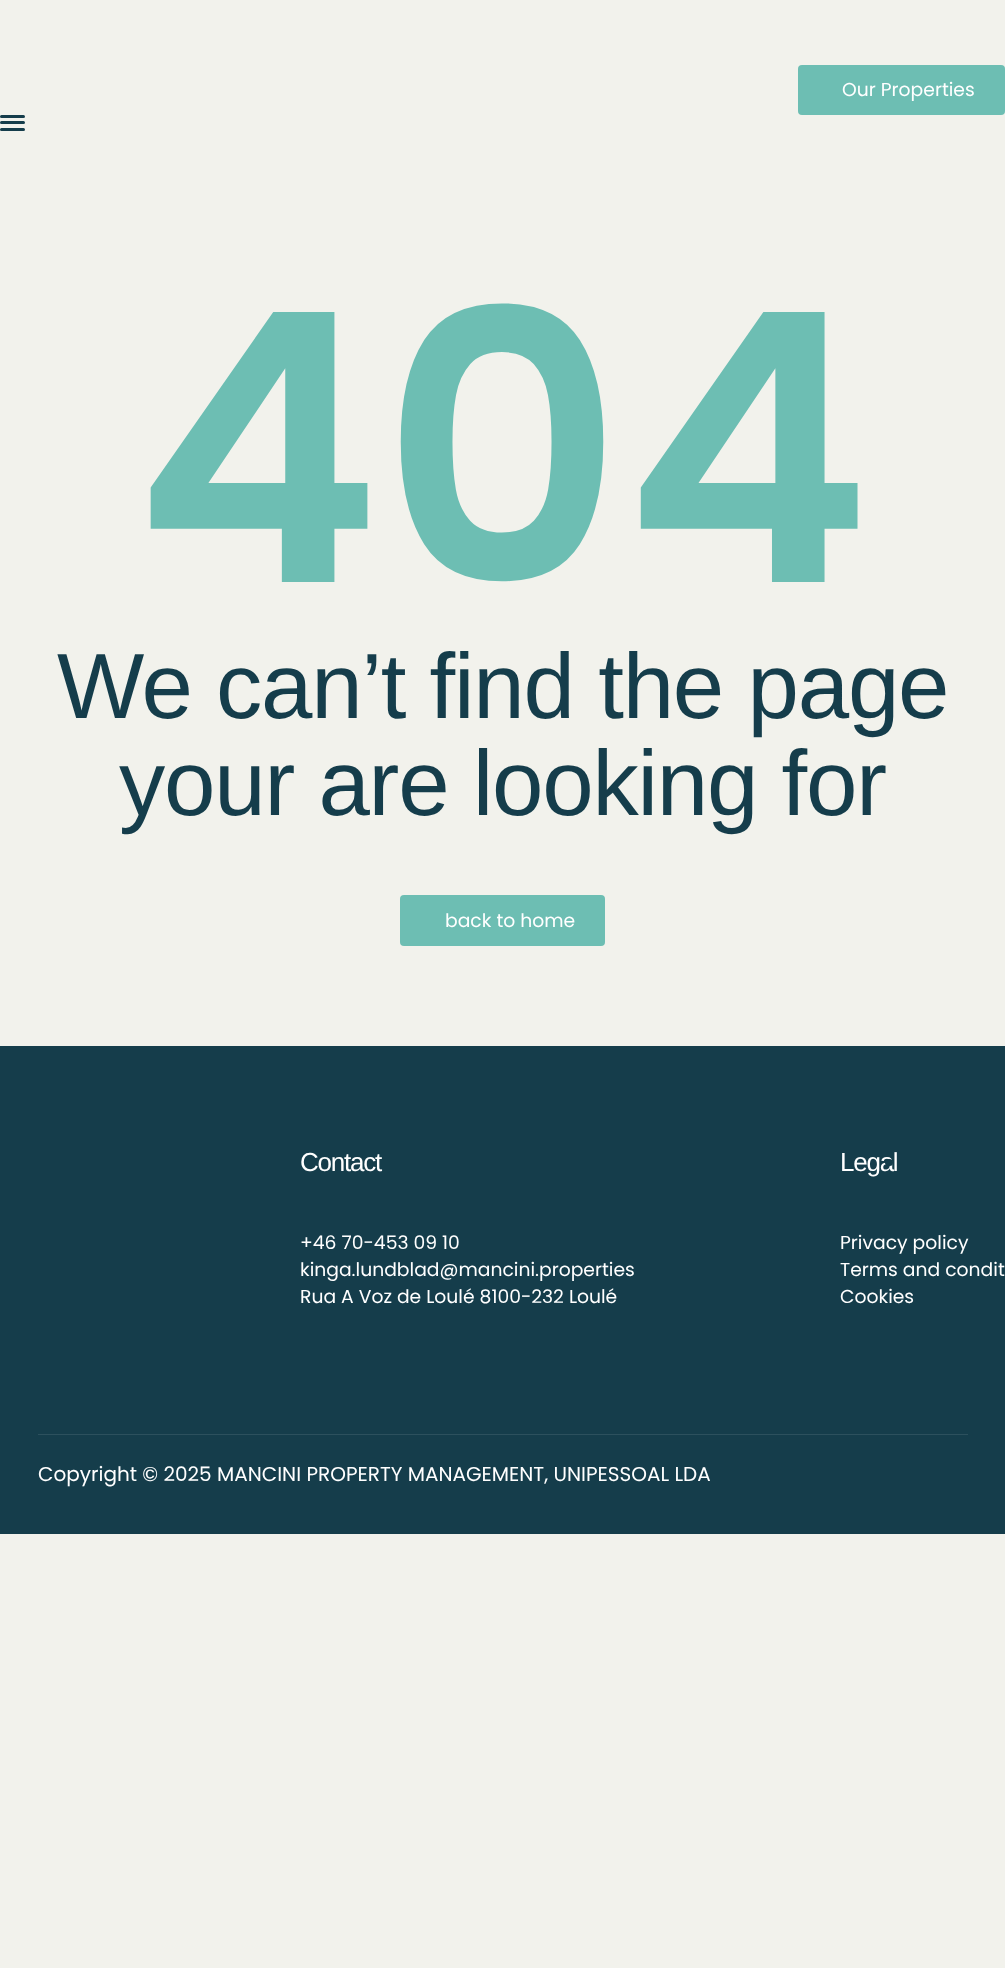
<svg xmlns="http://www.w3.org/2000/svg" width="1005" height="1968">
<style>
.a{font:18.75px Poppins;fill:#fff}
.b{font:600 375px Poppins;fill:#6dbeb3}
.c{font:92.5px Liberation Sans;letter-spacing:-1.25px;fill:#153d4b}
.d{font:26px Liberation Sans;letter-spacing:-1.25px;fill:#fff}
.e{font:20px Poppins;fill:#fff}
</style>
<rect width="100%" height="100%" fill="#f2f2ec"/>
<rect fill="#6dbeb3" x="798" y="65" width="207" height="50" rx="4"/>
<rect fill="#153d4b" y="115" width="25" height="3" rx="1.5"/>
<rect fill="#153d4b" y="121" width="25" height="3" rx="1.5"/>
<rect fill="#153d4b" y="128" width="25" height="3" rx="1.5"/>
<rect fill="#6dbeb3" x="400" y="895" width="205" height="51" rx="4"/>
<path fill="#153d4b" d="M0 1046h1005v488H0z"/>
<path fill="#2c505d" d="M38 1434h930v1H38z"/>
<text class="a" x="842" y="96">Our Properties</text>
<text class="b" x="133" y="582">404</text>
<text class="c" x="57" y="718">We can’t find the page</text>
<text class="c" x="119" y="815">your are looking for</text>
<text class="a" x="445" y="927">back to home</text>
<text class="d" x="300" y="1171">Contact</text>
<text class="a" x="300" y="1249">+46 70-453 09 10</text>
<text class="a" x="300" y="1276">kinga.lundblad@mancini.properties</text>
<text class="a" x="300" y="1303">Rua A Voz de Loulé 8100-232 Loulé</text>
<text class="d" x="840" y="1171">Legal</text>
<text class="a" x="840" y="1249">Privacy policy</text>
<text class="a" x="840" y="1276">Terms and condit</text>
<text class="a" x="840" y="1303">Cookies</text>
<rect fill="#153d4b" x="885" y="1159" width="8" height="7" rx="3.5"/>
<text class="e" x="38" y="1481">Copyright © 2025 MANCINI PROPERTY MANAGEMENT, UNIPESSOAL LDA</text>
</svg>
